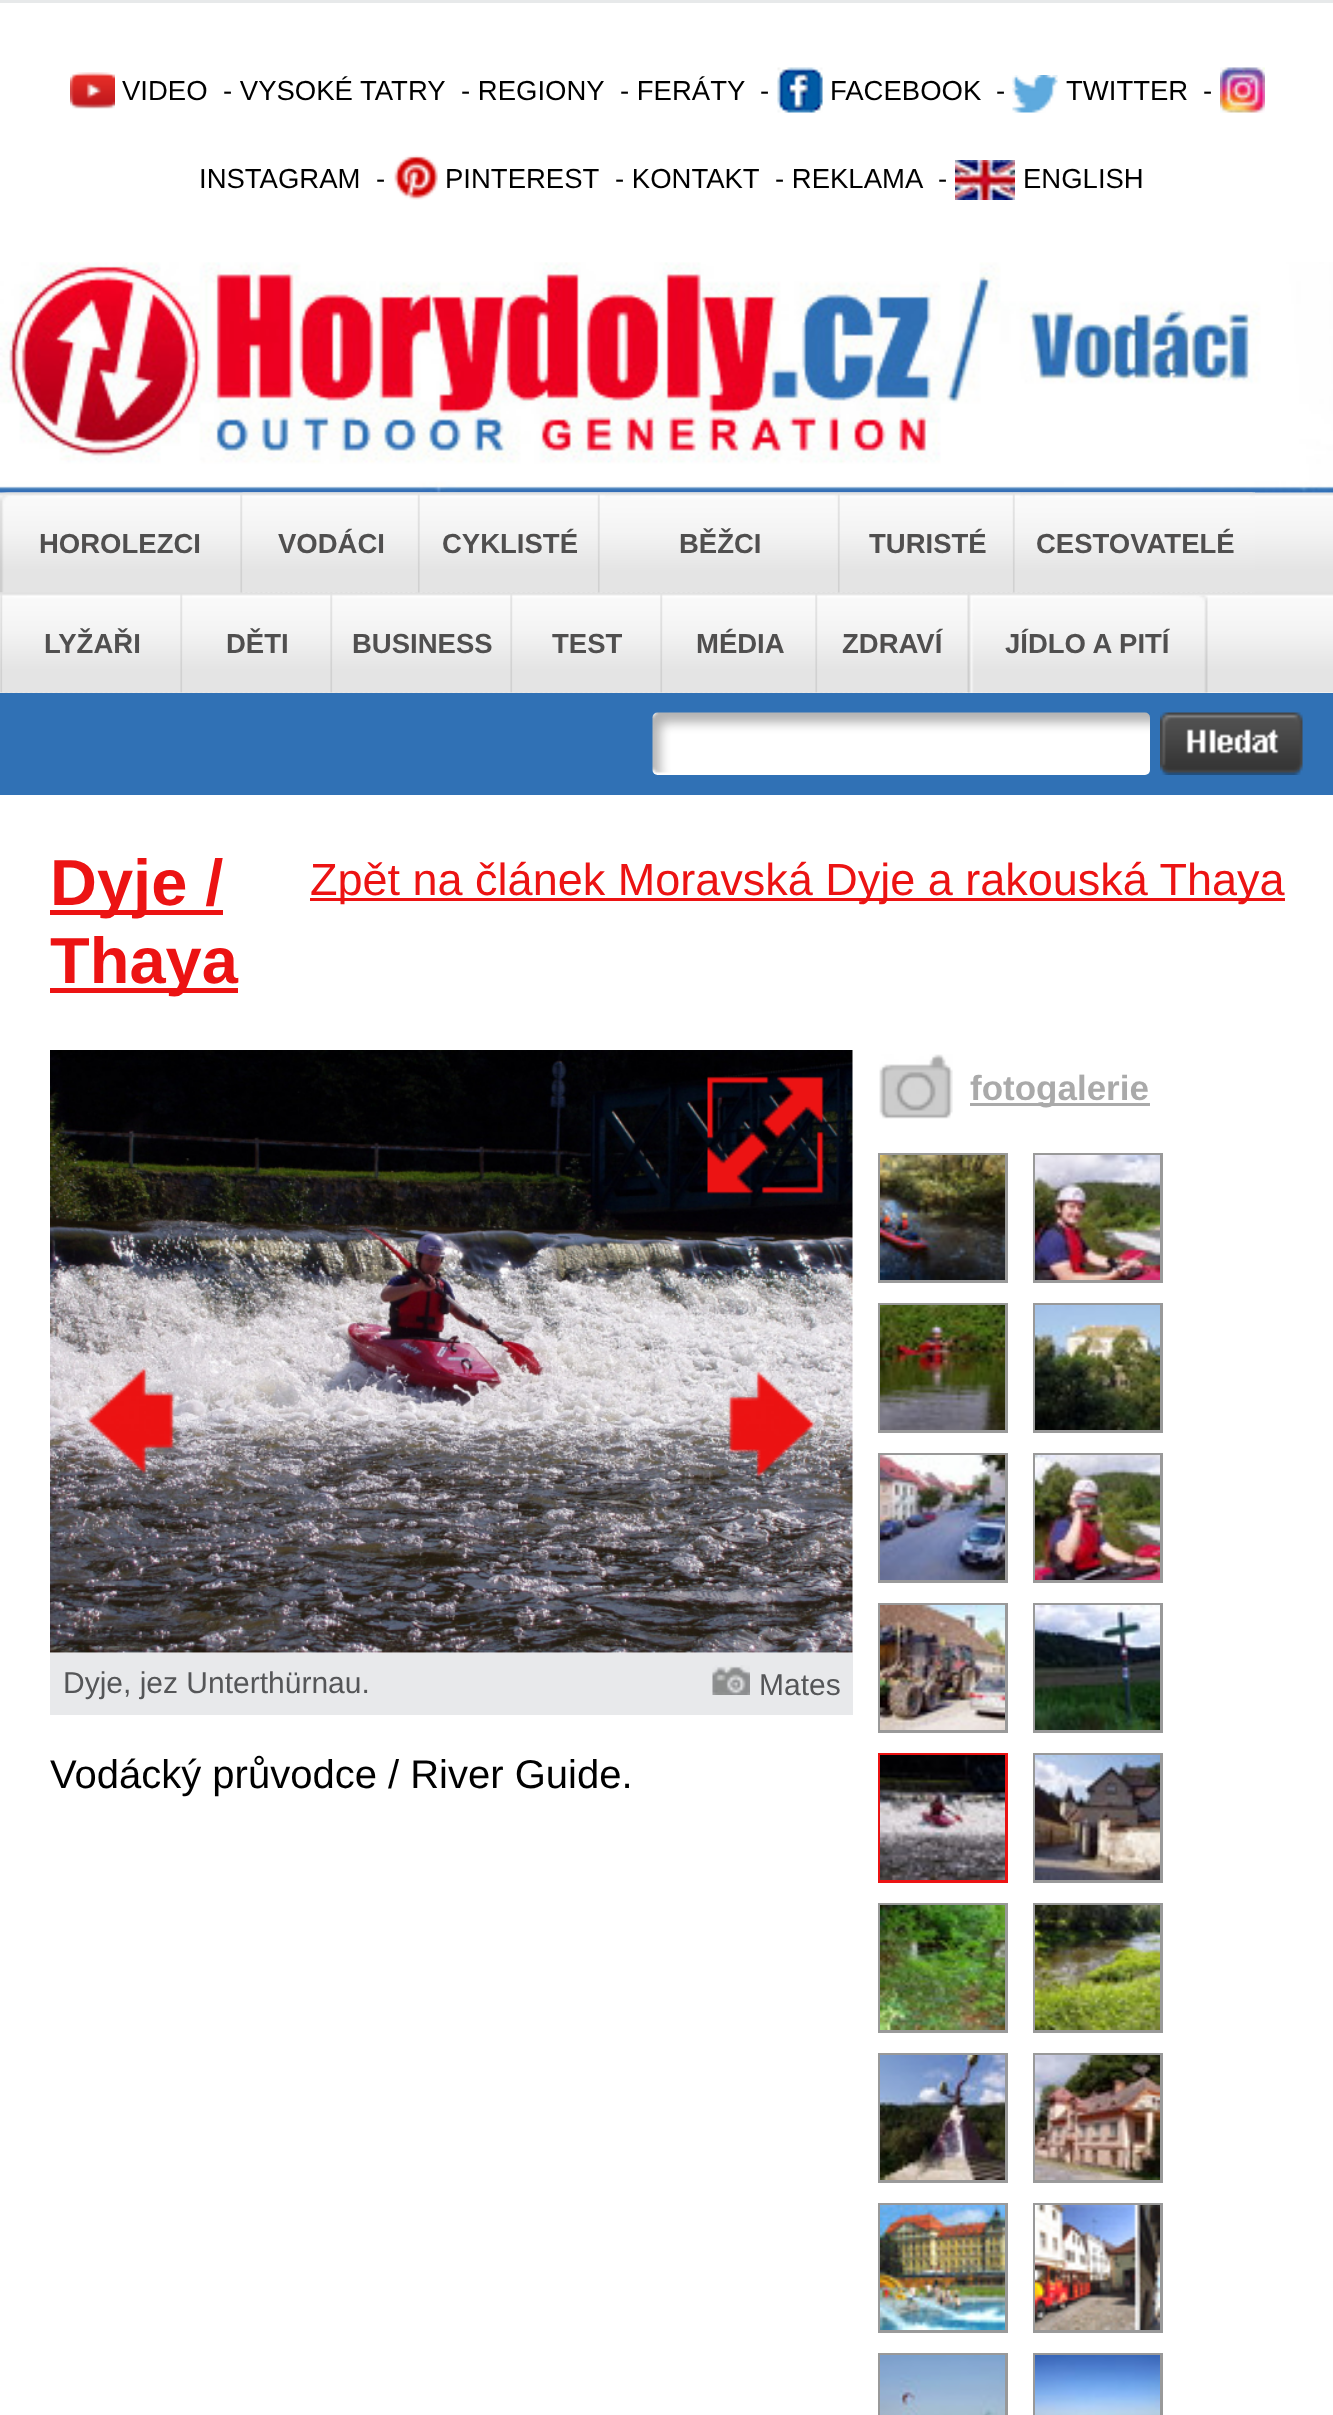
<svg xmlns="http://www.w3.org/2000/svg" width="1333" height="2415">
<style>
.a{font:27.5px Liberation Sans;fill:#000}
.b{font:bold 27.5px Liberation Sans;fill:#504f4f}
.c{font:bold 65px Liberation Sans;fill:#ec1313}
.d{font:45px Liberation Sans;fill:#ec1313}
.e{font:bold 35px Liberation Sans;fill:#aaa}
.f{font:30px Liberation Sans;fill:#555658}
.g{font:40px Liberation Sans;fill:#000}
</style>
<rect width="100%" height="100%" fill="#e7e9ea"/>
<path fill="#fff" d="M0 3h1333v2412H0z"/>
<image href="1.png" x="70" y="72" width="45" height="37"/>
<image href="2.png" x="777" y="67" width="46" height="46"/>
<image href="3.png" x="1012" y="75" width="46" height="38"/>
<image href="4.png" x="1220" y="67" width="45" height="46"/>
<image href="5.png" x="394" y="155" width="44" height="45"/>
<image href="6.png" x="955" y="160" width="60" height="40"/>
<image href="8.png" x="0" y="492" width="1333" height="201"/>
<image href="7.png" x="0" y="262" width="1333" height="231"/>
<image href="9.png" x="0" y="492" width="240" height="101"/>
<image href="10.png" x="240" y="492" width="178" height="101"/>
<image href="11.png" x="242" y="492" width="178" height="101"/>
<image href="12.png" x="417" y="492" width="181" height="101"/>
<image href="13.png" x="420" y="492" width="180" height="101"/>
<image href="14.png" x="597" y="492" width="241" height="101"/>
<image href="15.png" x="600" y="492" width="240" height="101"/>
<image href="16.png" x="837" y="492" width="176" height="101"/>
<image href="17.png" x="840" y="492" width="175" height="101"/>
<image href="18.png" x="1012" y="492" width="241" height="101"/>
<image href="19.png" x="1015" y="492" width="240" height="101"/>
<image href="20.png" x="0" y="592" width="180" height="101"/>
<image href="21.png" x="2" y="594" width="180" height="99"/>
<image href="22.png" x="180" y="594" width="150" height="99"/>
<image href="23.png" x="182" y="594" width="150" height="99"/>
<image href="24.png" x="330" y="594" width="180" height="99"/>
<image href="25.png" x="332" y="594" width="180" height="99"/>
<image href="26.png" x="510" y="594" width="150" height="99"/>
<image href="23.png" x="512" y="594" width="150" height="99"/>
<image href="27.png" x="660" y="594" width="155" height="99"/>
<image href="28.png" x="662" y="594" width="155" height="99"/>
<image href="29.png" x="815" y="594" width="150" height="99"/>
<image href="23.png" x="817" y="594" width="150" height="99"/>
<image href="30.png" x="967" y="594" width="241" height="99"/>
<path fill="#3071b5" d="M0 693h1333v102H0z"/>
<image href="31.png" x="652" y="712" width="498" height="63"/>
<image href="32.png" x="1160" y="712" width="143" height="63"/>
<path fill="#ec1313" d="M50 910h173v5H50z"/>
<path fill="#ec1313" d="M50 988h188v5H50z"/>
<path fill="#ec1313" d="M310 898h975v3H310z"/>
<image href="33.png" x="879" y="1054" width="74" height="65"/>
<path fill="#aaa" d="M970 1103h180v3H970z"/>
<path fill="none" stroke="#999" stroke-width="3" d="M879.5 1154.5h127v127H879.5z"/>
<image href="34.png" x="880" y="1155" width="125" height="125"/>
<path fill="none" stroke="#999" stroke-width="3" d="M1034.5 1154.5h127v127H1034.5z"/>
<image href="35.png" x="1035" y="1155" width="125" height="125"/>
<path fill="none" stroke="#999" stroke-width="3" d="M879.5 1304.5h127v127H879.5z"/>
<image href="36.png" x="880" y="1305" width="125" height="125"/>
<path fill="none" stroke="#999" stroke-width="3" d="M1034.5 1304.5h127v127H1034.5z"/>
<image href="37.png" x="1035" y="1305" width="125" height="125"/>
<path fill="none" stroke="#999" stroke-width="3" d="M879.5 1454.5h127v127H879.5z"/>
<image href="38.png" x="880" y="1455" width="125" height="125"/>
<path fill="none" stroke="#999" stroke-width="3" d="M1034.5 1454.5h127v127H1034.5z"/>
<image href="39.png" x="1035" y="1455" width="125" height="125"/>
<path fill="none" stroke="#999" stroke-width="3" d="M879.5 1604.5h127v127H879.5z"/>
<image href="40.png" x="880" y="1605" width="125" height="125"/>
<path fill="none" stroke="#999" stroke-width="3" d="M1034.5 1604.5h127v127H1034.5z"/>
<image href="41.png" x="1035" y="1605" width="125" height="125"/>
<path fill="none" stroke="#ec1313" stroke-width="3" d="M879.5 1754.5h127v127H879.5z"/>
<image href="42.png" x="880" y="1755" width="125" height="125"/>
<path fill="none" stroke="#999" stroke-width="3" d="M1034.5 1754.5h127v127H1034.5z"/>
<image href="43.png" x="1035" y="1755" width="125" height="125"/>
<path fill="none" stroke="#999" stroke-width="3" d="M879.5 1904.5h127v127H879.5z"/>
<image href="44.png" x="880" y="1905" width="125" height="125"/>
<path fill="none" stroke="#999" stroke-width="3" d="M1034.5 1904.5h127v127H1034.5z"/>
<image href="45.png" x="1035" y="1905" width="125" height="125"/>
<path fill="none" stroke="#999" stroke-width="3" d="M879.5 2054.5h127v127H879.5z"/>
<image href="46.png" x="880" y="2055" width="125" height="125"/>
<path fill="none" stroke="#999" stroke-width="3" d="M1034.5 2054.5h127v127H1034.5z"/>
<image href="47.png" x="1035" y="2055" width="125" height="125"/>
<path fill="none" stroke="#999" stroke-width="3" d="M879.5 2204.5h127v127H879.5z"/>
<image href="48.png" x="880" y="2205" width="125" height="125"/>
<path fill="none" stroke="#999" stroke-width="3" d="M1034.5 2204.5h127v127H1034.5z"/>
<image href="49.png" x="1035" y="2205" width="125" height="125"/>
<path fill="none" stroke="#999" stroke-width="3" d="M879.5 2354.5h127v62H879.5z"/>
<image href="50.png" x="880" y="2355" width="125" height="60"/>
<path fill="none" stroke="#999" stroke-width="3" d="M1034.5 2354.5h127v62H1034.5z"/>
<image href="51.png" x="1035" y="2355" width="125" height="60"/>
<image href="52.png" x="50" y="1050" width="803" height="603"/>
<image href="53.png" x="707" y="1076" width="118" height="118"/>
<image href="54.png" x="87" y="1367" width="88" height="107"/>
<image href="55.png" x="728" y="1371" width="88" height="107"/>
<path fill="#e8e9eb" d="M50 1653h803v62H50z"/>
<image href="56.png" x="712" y="1665" width="38" height="30"/>
<text class="a" x="122" y="100">VIDEO</text>
<text class="a" x="223" y="100">- VYSOKÉ TATRY</text>
<text class="a" x="461" y="100">- REGIONY</text>
<text class="a" x="620" y="100">- FERÁTY</text>
<text class="a" x="760" y="100">-</text>
<text class="a" x="830" y="100">FACEBOOK</text>
<text class="a" x="996" y="100">-</text>
<text class="a" x="1066" y="100">TWITTER</text>
<text class="a" x="1203" y="100">-</text>
<text class="a" x="199" y="188">INSTAGRAM</text>
<text class="a" x="376" y="188">-</text>
<text class="a" x="445" y="188">PINTEREST</text>
<text class="a" x="615" y="188">- KONTAKT</text>
<text class="a" x="775" y="188">- REKLAMA</text>
<text class="a" x="938" y="188">-</text>
<text class="a" x="1023" y="188">ENGLISH</text>
<text class="b" x="39" y="553">HOROLEZCI</text>
<text class="b" x="278" y="553">VODÁCI</text>
<text class="b" x="442" y="553">CYKLISTÉ</text>
<text class="b" x="679" y="553">BĚŽCI</text>
<text class="b" x="869" y="553">TURISTÉ</text>
<text class="b" x="1036" y="553">CESTOVATELÉ</text>
<text class="b" x="44" y="653">LYŽAŘI</text>
<text class="b" x="226" y="653">DĚTI</text>
<text class="b" x="352" y="653">BUSINESS</text>
<text class="b" x="552" y="653">TEST</text>
<text class="b" x="696" y="653">MÉDIA</text>
<text class="b" x="842" y="653">ZDRAVÍ</text>
<text class="b" x="1005" y="653">JÍDLO A PITÍ</text>
<text class="c" x="50" y="905">Dyje /</text>
<text class="c" x="50" y="983">Thaya</text>
<text class="d" x="310" y="895">Zpět na článek Moravská Dyje a rakouská Thaya</text>
<text class="e" x="970" y="1100">fotogalerie</text>
<text class="f" x="63" y="1693">Dyje, jez Unterthürnau.</text>
<text class="f" x="759" y="1695">Mates</text>
<text class="g" x="50" y="1788">Vodácký průvodce / River Guide.</text>
</svg>
